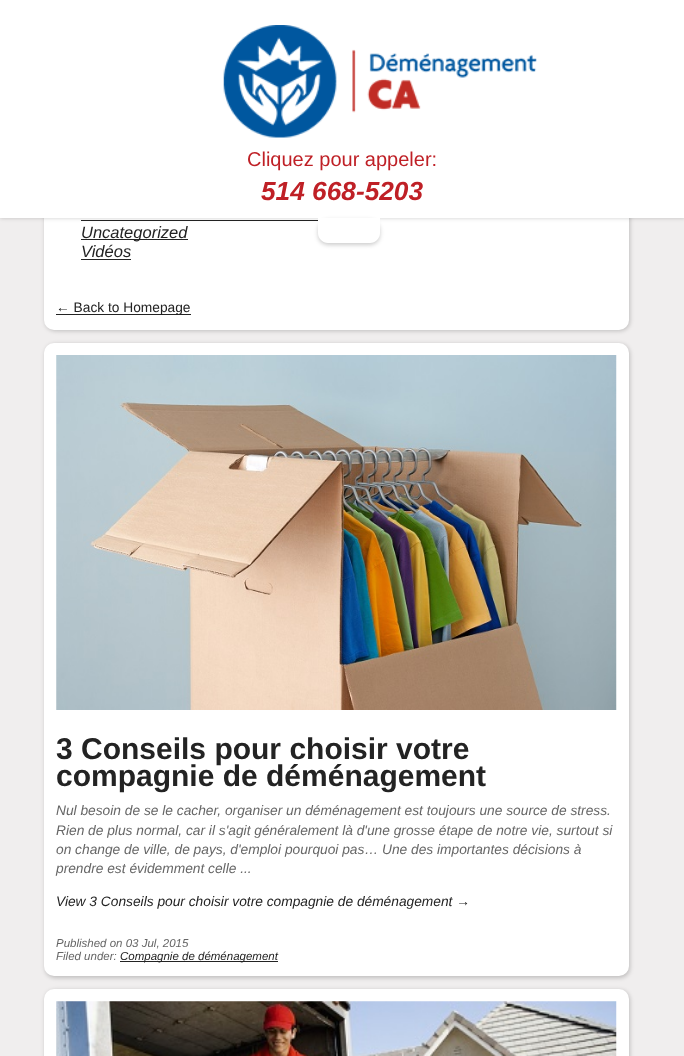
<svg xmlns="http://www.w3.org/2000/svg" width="684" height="1056">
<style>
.a{font:20px Liberation Sans;fill:#bf2026}
.b{font:italic bold 26.25px Liberation Sans;fill:#bf2026}
.c{font:italic 16.5px Liberation Sans;fill:#232323}
.d{font:13.75px Liberation Sans;fill:#232323}
.e{font:bold 30px Liberation Sans;fill:#232323}
.f{font:italic 13.75px Liberation Sans;fill:#666}
.g{font:italic 13.75px Liberation Sans;fill:#232323}
.h{font:italic 11.5px Liberation Sans;fill:#666}
.i{font:italic 11.5px Liberation Sans;fill:#232323}
</style>
<rect width="100%" height="100%" fill="#f0eeee"/>
<rect fill="#00000033" filter="blur(2px)" x="45" y="-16" width="585" height="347" rx="10"/>
<rect fill="#fff" x="44" y="-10" width="585" height="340" rx="10"/>
<path fill="#232323" d="M81 220h237v1H81z"/>
<path fill="#00000033" filter="blur(2px)" d="M0 0h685v218H0z"/>
<path fill="#fff" d="M0 0h684v218H0z"/>
<image href="1.png" x="223" y="25" width="314" height="113"/>
<rect fill="#00000033" filter="blur(2px)" x="318" y="220" width="62" height="25" rx="10"/>
<path fill="#fff" d="M318 218h62v15c0 5.5-4.5 10-10 10h-42c-5.5 0-10-4.5-10-10z"/>
<path fill="#232323" d="M81 239h107v1H81z"/>
<path fill="#232323" d="M81 259h50v1H81z"/>
<path fill="#232323" d="M56 314h135v1H56z"/>
<rect fill="#00000033" filter="blur(2px)" x="45" y="344" width="585" height="634" rx="10"/>
<rect fill="#fff" x="44" y="343" width="585" height="633" rx="10"/>
<image href="2.png" x="56" y="355" width="561" height="355"/>
<path fill="#232323" d="M120 961h158v1H120z"/>
<rect fill="#00000033" filter="blur(2px)" x="45" y="990" width="585" height="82" rx="10"/>
<rect fill="#fff" x="44" y="989" width="585" height="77" rx="10"/>
<image href="3.png" x="56" y="1001" width="561" height="55"/>
<text class="a" x="247" y="166">Cliquez pour appeler:</text>
<text class="b" x="261" y="200">514 668-5203</text>
<text class="c" x="81" y="238">Uncategorized</text>
<text class="c" x="81" y="257">Vidéos</text>
<text class="d" x="56" y="312">← Back to Homepage</text>
<text class="e" x="56" y="759">3 Conseils pour choisir votre</text>
<text class="e" x="56" y="786">compagnie de déménagement</text>
<text class="f" x="56" y="815">Nul besoin de se le cacher, organiser un déménagement est toujours une source de stress.</text>
<text class="f" x="56" y="835">Rien de plus normal, car il s'agit généralement là d'une grosse étape de notre vie, surtout si</text>
<text class="f" x="56" y="854">on change de ville, de pays, d'emploi pourquoi pas… Une des importantes décisions à</text>
<text class="f" x="56" y="873">prendre est évidemment celle ...</text>
<text class="g" x="56" y="906">View 3 Conseils pour choisir votre compagnie de déménagement →</text>
<text class="h" x="56" y="947">Published on 03 Jul, 2015</text>
<text class="h" x="56" y="960">Filed under:</text>
<text class="i" x="120" y="960">Compagnie de déménagement</text>
</svg>
